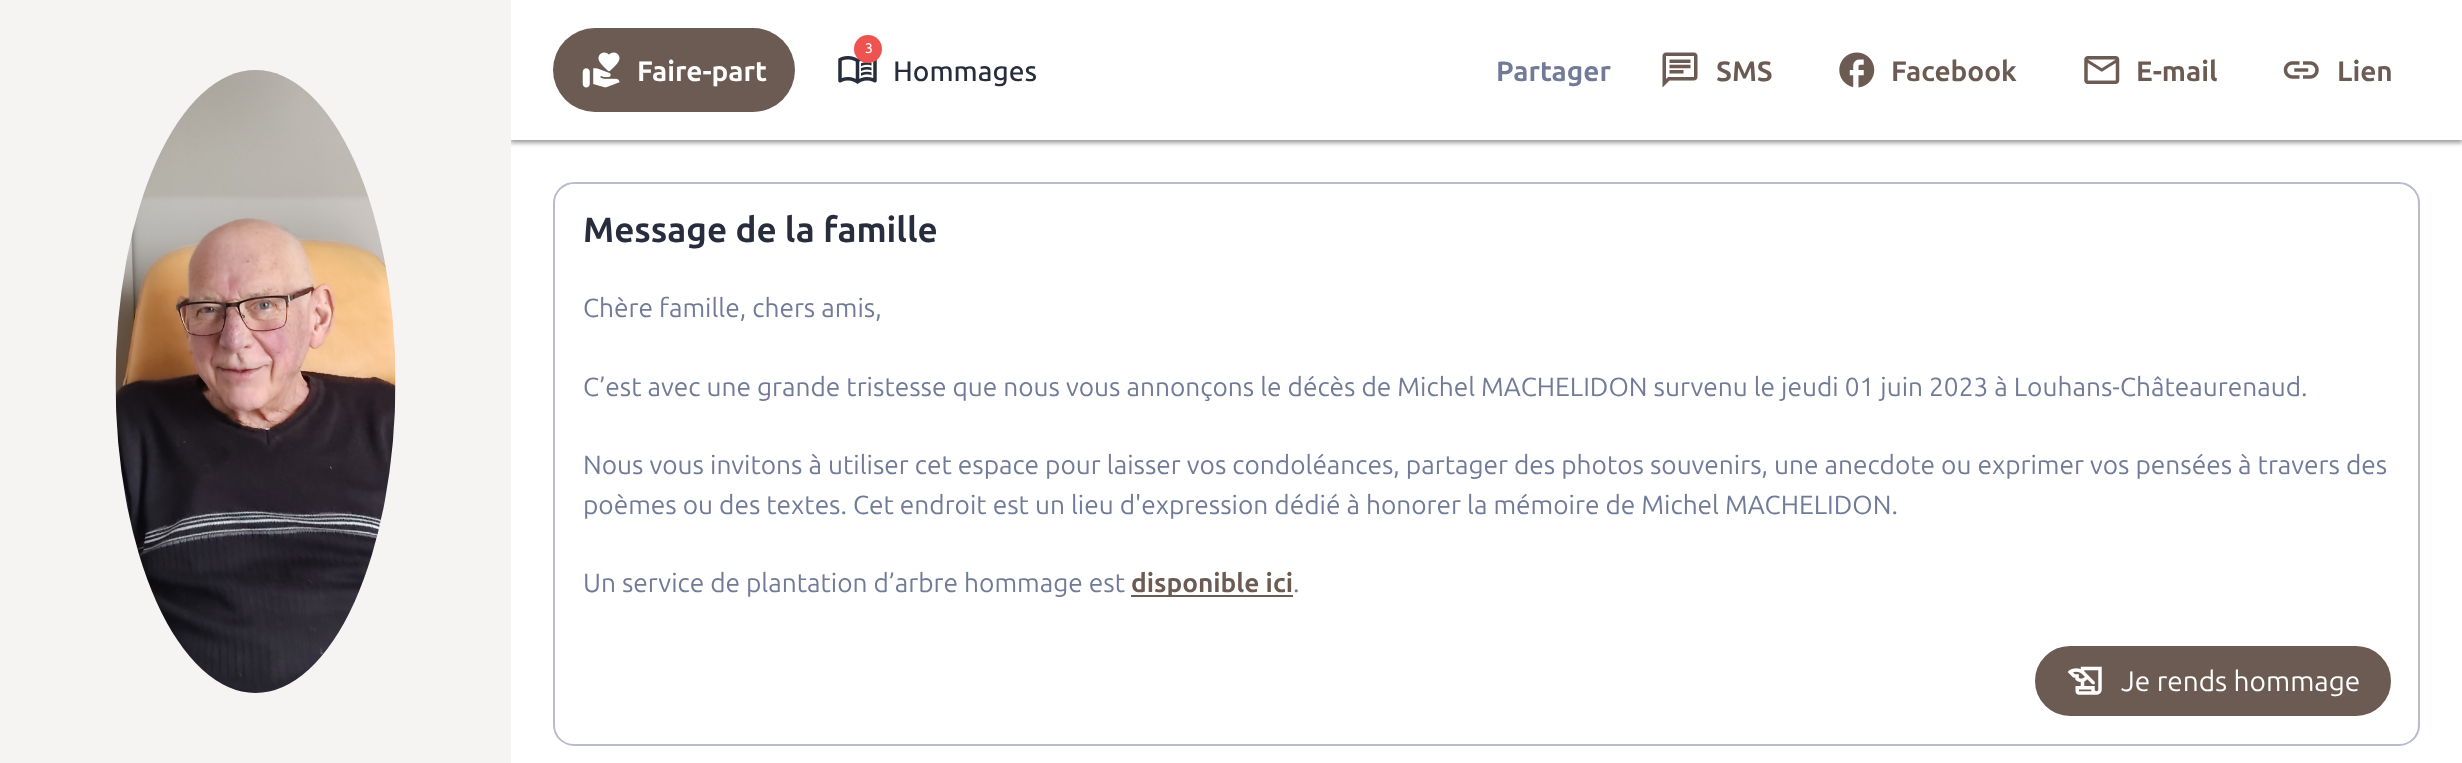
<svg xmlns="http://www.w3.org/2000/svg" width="2462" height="763">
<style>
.a{font:bold 28px Ubuntu;fill:#fff}
.b{font:500 14px Ubuntu;fill:#fff}
.c{font:500 28px Ubuntu;fill:#282d3e}
.d{font:bold 28px Ubuntu;fill:#717b98}
.e{font:bold 28px Ubuntu;fill:#6c5b52}
.f{font:bold 35px Ubuntu;fill:#282d3e}
.g{font:26.25px Ubuntu;fill:#717b98}
.h{font:bold 26.25px Ubuntu;fill:#6c5b52}
.i{font:28px Ubuntu;fill:#fff}
</style>
<defs>
<clipPath id="clip1"><path d="M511 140h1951v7H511z"/></clipPath>
<clipPath id="clip2"><path d="M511 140h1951v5H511z"/></clipPath>
</defs>
<rect width="100%" height="100%" fill="#fff"/>
<g clip-path="url(#clip1)">
<path fill="#00000026" filter="blur(2.5px)" d="M509 0h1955v144H509z"/>
</g>
<g clip-path="url(#clip2)">
<path fill="#0000004d" filter="blur(2px)" d="M511 2h1951v140H511z"/>
</g>
<path fill="#f6f4f3" d="M0 0h511v763H0z"/>
<image href="1.png" x="115" y="70" width="281" height="623"/>
<rect fill="#6c5b52" x="553" y="28" width="242" height="84" rx="42"/>
<image href="2.png" x="582" y="52" width="38" height="36"/>
<image href="3.png" x="838" y="56" width="39" height="28"/>
<circle fill="#ef5350" cx="868" cy="49" r="14"/>
<image href="4.png" x="1662" y="52" width="36" height="36"/>
<image href="5.png" x="1839" y="52" width="36" height="36"/>
<image href="6.png" x="2084" y="56" width="36" height="28"/>
<image href="7.png" x="2283" y="61" width="36" height="18"/>
<rect fill="none" stroke="#b9bdcb" stroke-width="2" x="554" y="183" width="1865" height="562" rx="20"/>
<path fill="#6c5b52" d="M1131 595h162v2H1131z"/>
<rect fill="#6c5b52" stroke="#6c5b52" stroke-width="2" x="2036" y="647" width="354" height="68" rx="34"/>
<image href="8.png" x="2067" y="666" width="35" height="29"/>
<text class="a" x="637" y="81">Faire-part</text>
<text class="b" x="865" y="53">3</text>
<text class="c" x="893" y="81">Hommages</text>
<text class="d" x="1496" y="81">Partager</text>
<text class="e" x="1716" y="81">SMS</text>
<text class="e" x="1891" y="81">Facebook</text>
<text class="e" x="2136" y="81">E-mail</text>
<text class="e" x="2337" y="81">Lien</text>
<text class="f" x="583" y="242">Message de la famille</text>
<text class="g" x="583" y="317">Chère famille, chers amis,</text>
<text class="g" x="583" y="396">C’est avec une grande tristesse que nous vous annonçons le décès de Michel MACHELIDON survenu le jeudi 01 juin 2023 à Louhans-Châteaurenaud.</text>
<text class="g" x="583" y="474">Nous vous invitons à utiliser cet espace pour laisser vos condoléances, partager des photos souvenirs, une anecdote ou exprimer vos pensées à travers des</text>
<text class="g" x="583" y="514">poèmes ou des textes. Cet endroit est un lieu d'expression dédié à honorer la mémoire de Michel MACHELIDON.</text>
<text class="g" x="583" y="592">Un service de plantation d’arbre hommage est</text>
<text class="h" x="1131" y="592">disponible ici</text>
<text class="g" x="1293" y="592">.</text>
<text class="i" x="2121" y="691">Je rends hommage</text>
</svg>
